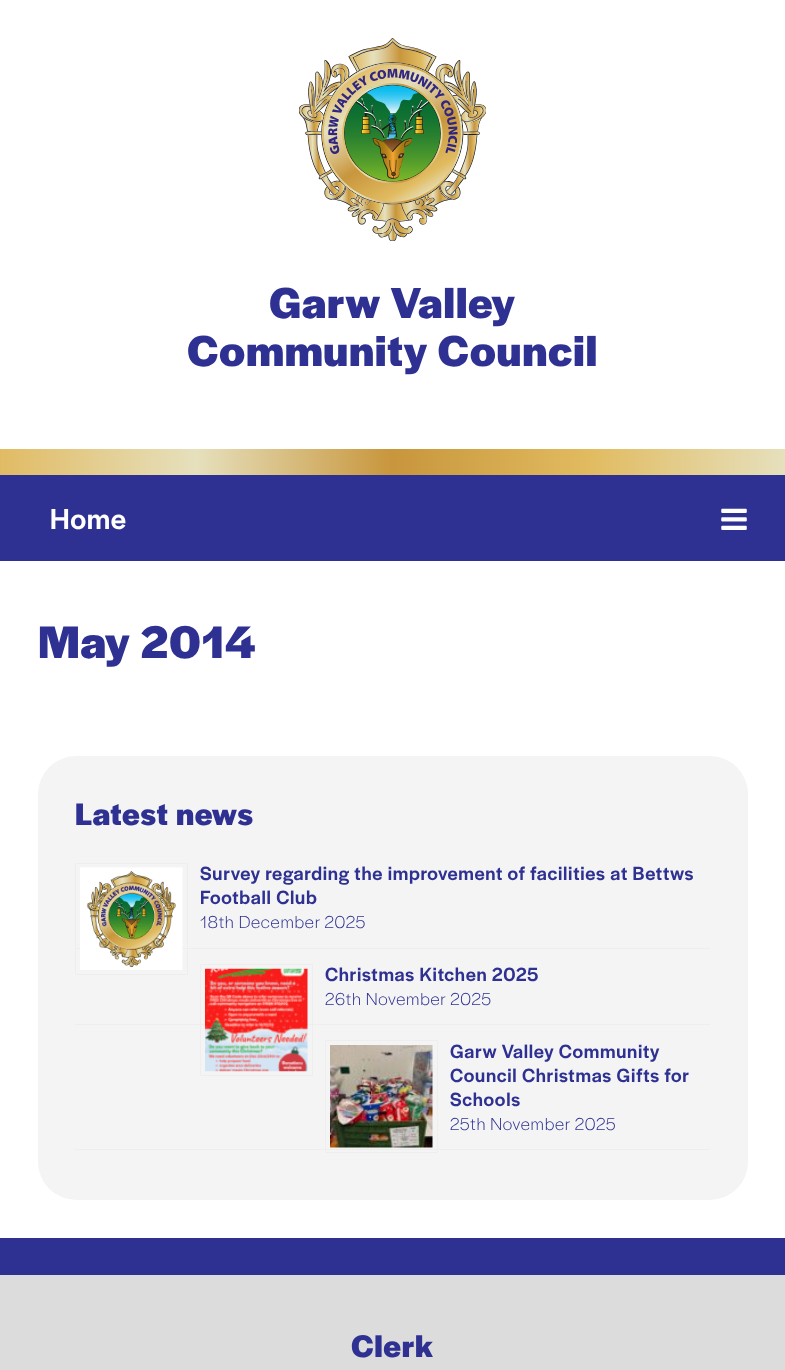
<svg xmlns="http://www.w3.org/2000/svg" width="785" height="1370">
<style>
.a{font:bold 45.1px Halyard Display;letter-spacing:0.72px;fill:#2e3192}
.b{font:500 30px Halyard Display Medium;letter-spacing:0.72px;fill:#fff}
.c{font:bold 47.5px Halyard Display;letter-spacing:0.72px;fill:#2e3192}
.d{font:bold 32.5px Halyard Display;letter-spacing:0.72px;fill:#2e3192}
.e{font:500 19.9px Halyard Display Medium;letter-spacing:0.72px;fill:#2e3192}
.f{font:300 18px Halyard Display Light;letter-spacing:0.72px;fill:#2e3192}
</style>
<defs>
<linearGradient id="g1" gradientUnits="userSpaceOnUse" x1="0" y1="462" x2="785" y2="462"><stop offset="0" stop-color="#e1bb64"/><stop offset="0.25" stop-color="#e6e0bd"/><stop offset="0.5" stop-color="#c8963c"/><stop offset="0.75" stop-color="#e1bb60"/><stop offset="1" stop-color="#e6e0bd"/></linearGradient>
</defs>
<rect width="100%" height="100%" fill="#fff"/>
<image href="1.png" x="299" y="38" width="187" height="203"/>
<path fill="url(#g1)" d="M0 449h785v26H0z"/>
<path fill="#2e3192" d="M0 475h785v86H0z"/>
<image href="2.png" x="721" y="508" width="26" height="22"/>
<rect fill="#f4f4f4" x="38" y="756" width="710" height="444" rx="38"/>
<path fill="#eee" d="M75 948h635v1H75z"/>
<path fill="none" stroke="#eee" d="M75.5 863.5h112v111H75.5z"/>
<image href="3.png" x="80" y="867" width="103" height="103"/>
<path fill="#eee" d="M75 1024h635v1H75z"/>
<path fill="none" stroke="#eee" d="M200.5 964.5h112v111H200.5z"/>
<image href="4.png" x="205" y="968" width="103" height="104"/>
<path fill="#eee" d="M75 1149h635v1H75z"/>
<path fill="none" stroke="#eee" d="M325.5 1040.5h112v112H325.5z"/>
<image href="5.png" x="330" y="1045" width="103" height="103"/>
<path fill="#dcdcdc" d="M0 1275h785v95H0z"/>
<path fill="#2e3192" d="M0 1238h785v37H0z"/>
<text class="a" x="269" y="318">Garw Valley</text>
<text class="a" x="187" y="366">Community Council</text>
<text class="b" x="50" y="529">Home</text>
<text class="c" x="38" y="658">May 2014</text>
<text class="d" x="75" y="825">Latest news</text>
<text class="e" x="200" y="880">Survey regarding the improvement of facilities at Bettws</text>
<text class="e" x="200" y="904">Football Club</text>
<text class="f" x="200" y="928">18th December 2025</text>
<text class="e" x="325" y="981">Christmas Kitchen 2025</text>
<text class="f" x="325" y="1005">26th November 2025</text>
<text class="e" x="450" y="1058">Garw Valley Community</text>
<text class="e" x="450" y="1082">Council Christmas Gifts for</text>
<text class="e" x="450" y="1106">Schools</text>
<text class="f" x="450" y="1130">25th November 2025</text>
<text class="d" x="351" y="1357">Clerk</text>
</svg>
